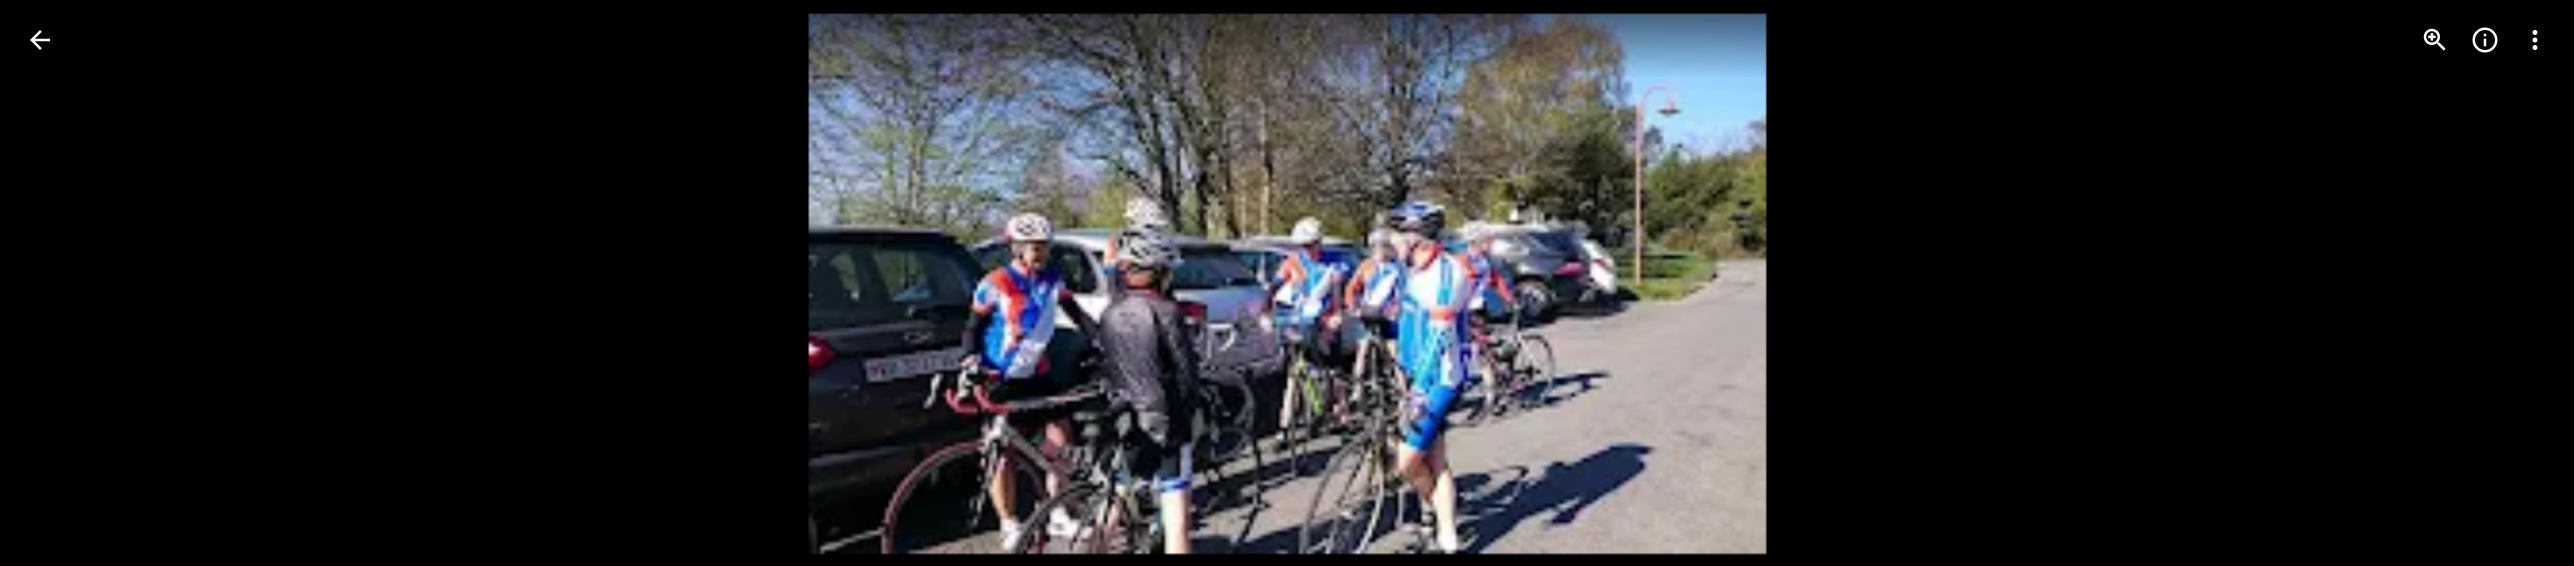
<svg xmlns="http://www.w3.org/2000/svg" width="2574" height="566">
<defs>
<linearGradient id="g1" gradientUnits="userSpaceOnUse" x1="1288" y1="0" x2="1288" y2="80"><stop offset="0" stop-color="#000" stop-opacity="0.6"/><stop offset="1" stop-color="#000" stop-opacity="0"/></linearGradient>
</defs>
<rect width="100%" height="100%" fill="#000"/>
<image href="5.png" x="808" y="13" width="959" height="542"/>
<path fill="url(#g1)" d="M808 13h959v64H808z"/>
<image href="1.png" x="30" y="30" width="20" height="20"/>
<image href="2.png" x="2423" y="28" width="23" height="23"/>
<image href="3.png" x="2472" y="27" width="26" height="26"/>
<image href="4.png" x="2532" y="30" width="6" height="20"/>
</svg>
